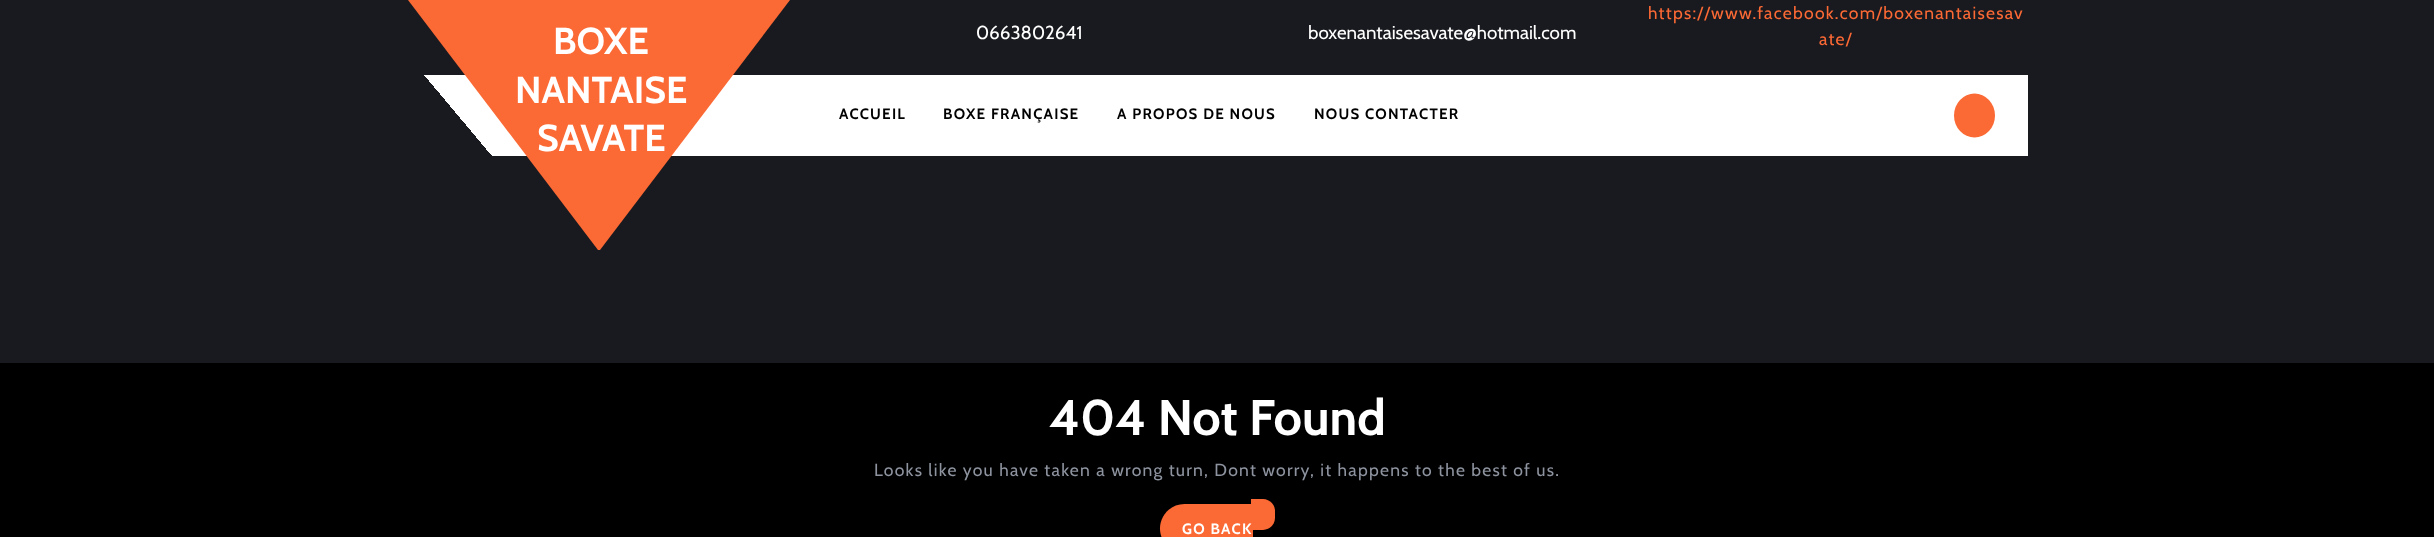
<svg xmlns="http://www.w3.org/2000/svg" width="2434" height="537">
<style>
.a{font:bold 37.5px Cabin;fill:#fff}
.b{font:18.75px Cabin;fill:#fff}
.c{font:17.5px Cabin;letter-spacing:1.25px;fill:#fb6935}
.d{font:bold 15px Cabin;letter-spacing:1.25px;fill:#000}
.e{font:bold 50px Cabin;fill:#fff}
.f{font:17.5px Cabin;letter-spacing:1.25px;fill:#8d939f}
.g{font:bold 15px Cabin;letter-spacing:1.25px;fill:#fff}
</style>
<defs>
<linearGradient id="g1" gradientUnits="userSpaceOnUse" x1="722" y1="531" x2="1713" y2="-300"><stop offset="0.05" stop-color="#191a1f"/><stop offset="0.05" stop-color="#fff"/></linearGradient>
</defs>
<rect width="100%" height="100%" fill="#000"/>
<path fill="#191a1f" d="M0 0h2434v363H0z"/>
<path fill="url(#g1)" d="M424 75h1604v81H424z"/>
<path fill="#fb6935" d="M408 0h382l-190 250h-2z"/>
<ellipse fill="#fb6935" cx="1974.5" cy="115.5" rx="20.5" ry="22"/>
<path fill="#fb6935" d="M1184.5 504h68.5v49h-68.5c-13.5 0-24.5-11-24.5-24.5c0-13.5 11-24.5 24.5-24.5z"/>
<path fill="#fb6935" d="M1251 499h12c6.5 0 12 5.5 12 12v7c0 6.5-5.5 12-12 12h-12z"/>
<text class="a" x="553" y="54">BOXE</text>
<text class="a" x="515" y="103">NANTAISE</text>
<text class="a" x="537" y="151">SAVATE</text>
<text class="b" x="976" y="39">0663802641</text>
<text class="b" x="1308" y="39">boxenantaisesavate@hotmail.com</text>
<text class="c" x="1648" y="19">https://www.facebook.com/boxenantaisesav</text>
<text class="c" x="1819" y="45">ate/</text>
<text class="d" x="839" y="119">ACCUEIL</text>
<text class="d" x="943" y="119">BOXE FRANÇAISE</text>
<text class="d" x="1117" y="119">A PROPOS DE NOUS</text>
<text class="d" x="1314" y="119">NOUS CONTACTER</text>
<text class="e" x="1049" y="435">404 Not Found</text>
<text class="f" x="874" y="476">Looks like you have taken a wrong turn, Dont worry, it happens to the best of us.</text>
<text class="g" x="1182" y="534">GO BACK</text>
</svg>
